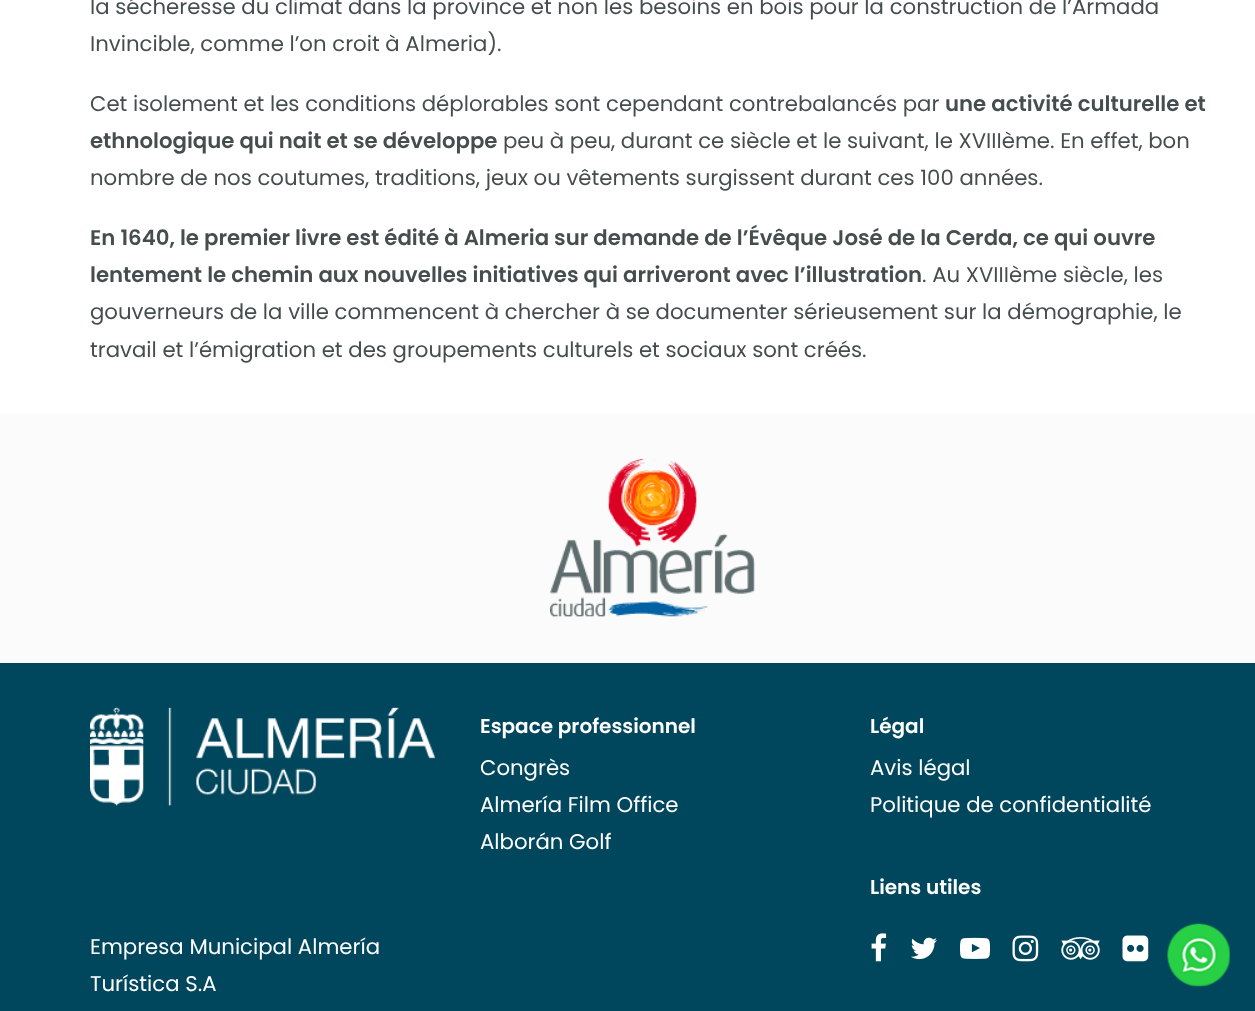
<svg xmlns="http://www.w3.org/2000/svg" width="1255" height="1011">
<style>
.a{font:21.25px Poppins;fill:#464d4e}
.b{font:600 21.25px Poppins;fill:#464d4e}
.c{font:600 20px Poppins;fill:#fff}
.d{font:21.25px Poppins;fill:#fff}
</style>
<rect width="100%" height="100%" fill="#fff"/>
<path fill="#fbfbfb" d="M0 414h1255v249H0z"/>
<image href="1.png" x="550" y="458" width="205" height="159"/>
<path fill="#00475d" d="M0 663h1255v348H0z"/>
<image href="2.png" x="871" y="933" width="16" height="29"/>
<image href="3.png" x="911" y="937" width="26" height="23"/>
<image href="4.png" x="960" y="937" width="30" height="22"/>
<image href="5.png" x="1012" y="935" width="27" height="27"/>
<image href="6.png" x="1061" y="937" width="39" height="23"/>
<image href="7.png" x="1122" y="935" width="27" height="27"/>
<image href="8.png" x="90" y="707" width="345" height="99"/>
<image href="9.png" x="1167" y="923" width="63" height="64"/>
<text class="a" x="90" y="14">la sécheresse du climat dans la province et non les besoins en bois pour la construction de l’Armada</text>
<text class="a" x="90" y="51">Invincible, comme l’on croit à Almeria).</text>
<text class="a" x="90" y="111">Cet isolement et les conditions déplorables sont cependant contrebalancés par</text>
<text class="b" x="945" y="111">une activité culturelle et</text>
<text class="b" x="90" y="148">ethnologique qui nait et se développe</text>
<text class="a" x="503" y="148">peu à peu, durant ce siècle et le suivant, le XVIIIème. En effet, bon</text>
<text class="a" x="90" y="185">nombre de nos coutumes, traditions, jeux ou vêtements surgissent durant ces 100 années.</text>
<text class="b" x="90" y="245">En 1640, le premier livre est édité à Almeria sur demande de l’Évêque José de la Cerda, ce qui ouvre</text>
<text class="b" x="90" y="282">lentement le chemin aux nouvelles initiatives qui arriveront avec l’illustration</text>
<text class="a" x="922" y="282">. Au XVIIIème siècle, les</text>
<text class="a" x="90" y="319">gouverneurs de la ville commencent à chercher à se documenter sérieusement sur la démographie, le</text>
<text class="a" x="90" y="357">travail et l’émigration et des groupements culturels et sociaux sont créés.</text>
<text class="c" x="480" y="733">Espace professionnel</text>
<text class="d" x="480" y="775">Congrès</text>
<text class="d" x="480" y="812">Almería Film Office</text>
<text class="d" x="480" y="849">Alborán Golf</text>
<text class="c" x="870" y="733">Légal</text>
<text class="d" x="870" y="775">Avis légal</text>
<text class="d" x="870" y="812">Politique de confidentialité</text>
<text class="c" x="870" y="894">Liens utiles</text>
<text class="d" x="90" y="954">Empresa Municipal Almería</text>
<text class="d" x="90" y="991">Turística S.A</text>
</svg>
